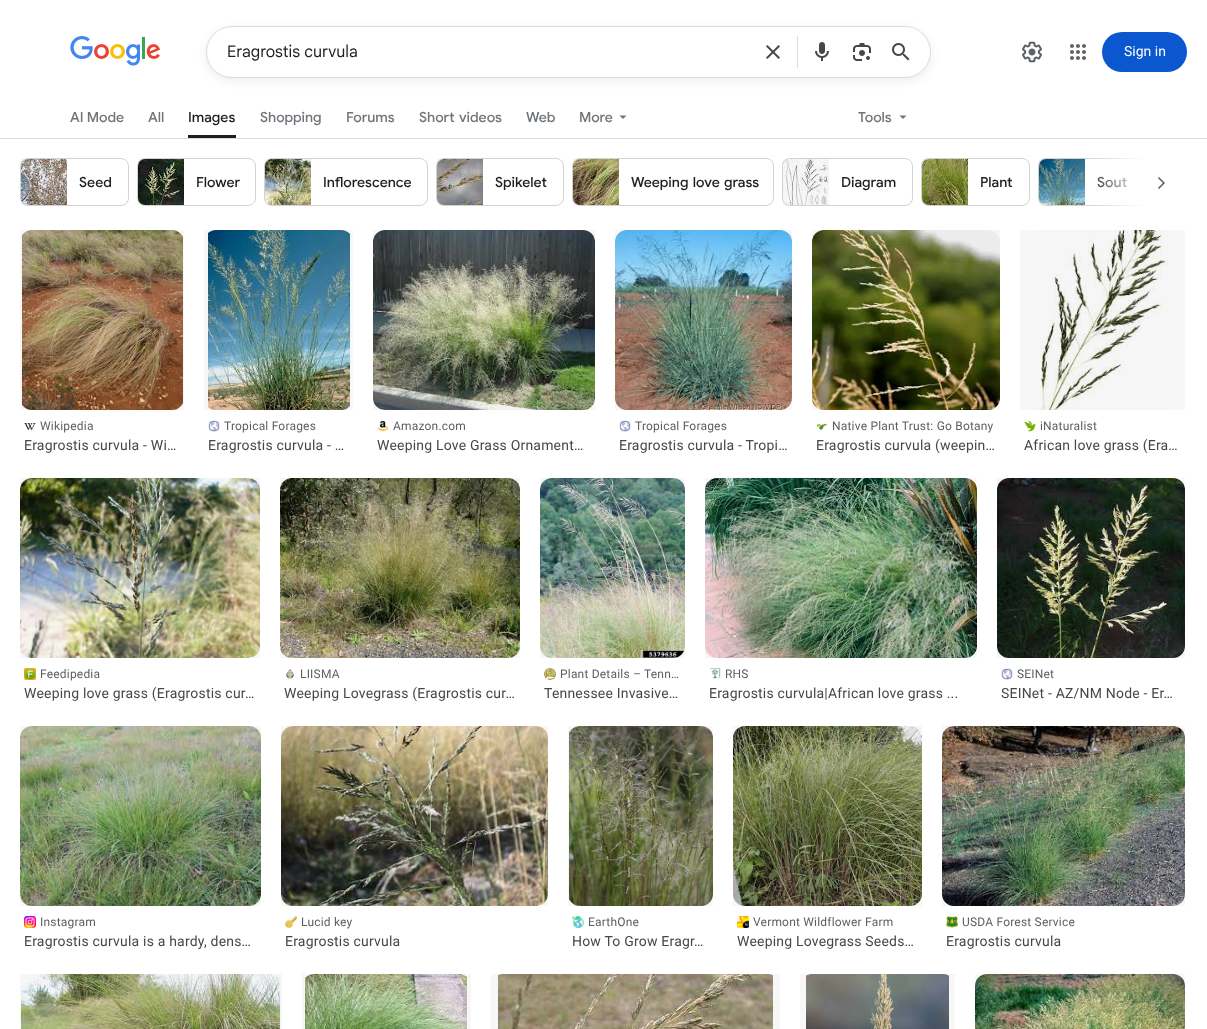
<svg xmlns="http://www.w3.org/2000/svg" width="1207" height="1029">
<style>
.a{font:16px Google Sans;fill:#1f1f1f}
.b{font:14px Roboto;fill:#fff}
.c{font:500 14px Google Sans;fill:#70757a}
.d{font:500 14px Google Sans;fill:#1f1f1f}
.e{font:12px Roboto;letter-spacing:0.2px;fill:#5e5e5e}
.f{font:14px Roboto;letter-spacing:0.2px;fill:#474747}
</style>
<defs>
<clipPath id="clip1"><path d="M20 158h1149v50H20z"/></clipPath>
<linearGradient id="g1" gradientUnits="userSpaceOnUse" x1="1085" y1="183" x2="1185" y2="183"><stop offset="0" stop-color="#fff" stop-opacity="0"/><stop offset="0.6" stop-color="#fff"/><stop offset="1" stop-color="#fff"/></linearGradient>
</defs>
<rect width="100%" height="100%" fill="#fff"/>
<image href="1.png" x="70" y="36" width="90" height="30"/>
<rect fill="#1f1f1f14" filter="blur(5px)" x="206" y="29" width="725" height="52" rx="26"/>
<rect fill="#fff" stroke="#dadce0" x="206.5" y="26.5" width="724" height="51" rx="25.5"/>
<image href="2.png" x="766" y="45" width="14" height="14"/>
<path fill="#dadce0" d="M797 36h1v32H797z"/>
<image href="3.png" x="815" y="42" width="14" height="19"/>
<image href="4.png" x="853" y="43" width="18" height="18"/>
<image href="5.png" x="892" y="43" width="18" height="18"/>
<image href="6.png" x="1022" y="41" width="20" height="22"/>
<image href="7.png" x="1070" y="44" width="16" height="16"/>
<rect fill="#0b57d0" x="1102" y="32" width="85" height="40" rx="20"/>
<path fill="#1f1f1f" d="M188 135h48v3H188z"/>
<path fill="#70757a" d="M619.5 115.5l3.5 3.5l3.5-3.5z"/>
<path fill="#70757a" d="M899.5 115.5l3.5 3.5l3.5-3.5z"/>
<path fill="#dadce0" d="M0 138h1207v1H0z"/>
<rect fill="none" stroke="#d2d2d2" x="20.5" y="158.5" width="108" height="47" rx="7.5"/>
<image href="8.png" x="21" y="159" width="46" height="46"/>
<path fill="#00000008" d="M21 159h46v46H21z"/>
<rect fill="none" stroke="#d2d2d2" x="137.5" y="158.5" width="118" height="47" rx="7.5"/>
<image href="9.png" x="138" y="159" width="46" height="46"/>
<path fill="#00000008" d="M138 159h43v46H138z"/>
<rect fill="none" stroke="#d2d2d2" x="264.5" y="158.5" width="163" height="47" rx="7.5"/>
<image href="10.png" x="265" y="159" width="46" height="46"/>
<path fill="#00000008" d="M265 159h46v46H265z"/>
<rect fill="none" stroke="#d2d2d2" x="436.5" y="158.5" width="127" height="47" rx="7.5"/>
<image href="11.png" x="437" y="159" width="46" height="46"/>
<path fill="#00000008" d="M437 159h46v46H437z"/>
<rect fill="none" stroke="#d2d2d2" x="572.5" y="158.5" width="201" height="47" rx="7.5"/>
<image href="12.png" x="573" y="159" width="46" height="46"/>
<path fill="#00000008" d="M573 159h46v46H573z"/>
<rect fill="none" stroke="#d2d2d2" x="782.5" y="158.5" width="130" height="47" rx="7.5"/>
<image href="13.png" x="783" y="159" width="46" height="46"/>
<path fill="#00000008" d="M783 159h46v46H783z"/>
<rect fill="none" stroke="#d2d2d2" x="921.5" y="158.5" width="108" height="47" rx="7.5"/>
<image href="14.png" x="922" y="159" width="46" height="46"/>
<path fill="#00000008" d="M922 159h46v46H922z"/>
<g clip-path="url(#clip1)">
<rect fill="none" stroke="#d2d2d2" x="1038.5" y="158.5" width="155" height="47" rx="7.5"/>
</g>
<image href="15.png" x="1039" y="159" width="46" height="46"/>
<path fill="#00000008" d="M1039 159h46v46H1039z"/>
<image href="17.png" x="22" y="230" width="161" height="180"/>
<path fill="#00000008" d="M20 230h164v180H20z"/>
<image href="18.png" x="24" y="423" width="12" height="8"/>
<image href="19.png" x="208" y="230" width="142" height="180"/>
<path fill="#00000008" d="M204 230h149v180H204z"/>
<image href="20.png" x="208" y="420" width="12" height="12"/>
<image href="21.png" x="373" y="230" width="222" height="180"/>
<path fill="#00000008" d="M373 230h222v180H373z"/>
<image href="22.png" x="377" y="420" width="12" height="12"/>
<image href="23.png" x="615" y="230" width="177" height="180"/>
<path fill="#00000008" d="M615 230h177v180H615z"/>
<image href="24.png" x="619" y="420" width="12" height="12"/>
<image href="25.png" x="812" y="230" width="188" height="180"/>
<path fill="#00000008" d="M812 230h188v180H812z"/>
<image href="26.png" x="816" y="423" width="12" height="7"/>
<image href="27.png" x="1034" y="230" width="134" height="180"/>
<path fill="#00000008" d="M1020 230h165v180H1020z"/>
<image href="28.png" x="1024" y="420" width="12" height="12"/>
<image href="29.png" x="20" y="478" width="240" height="180"/>
<path fill="#00000008" d="M20 478h240v180H20z"/>
<image href="30.png" x="24" y="668" width="12" height="12"/>
<image href="31.png" x="280" y="478" width="240" height="180"/>
<path fill="#00000008" d="M280 478h240v180H280z"/>
<image href="32.png" x="286" y="669" width="8" height="10"/>
<image href="33.png" x="540" y="478" width="145" height="180"/>
<path fill="#00000008" d="M540 478h145v180H540z"/>
<image href="34.png" x="544" y="668" width="12" height="12"/>
<image href="35.png" x="705" y="478" width="272" height="180"/>
<path fill="#00000008" d="M705 478h272v180H705z"/>
<image href="36.png" x="710" y="668" width="11" height="12"/>
<image href="37.png" x="997" y="478" width="188" height="180"/>
<path fill="#00000008" d="M997 478h188v180H997z"/>
<image href="38.png" x="1001" y="668" width="12" height="12"/>
<image href="39.png" x="20" y="726" width="241" height="180"/>
<path fill="#00000008" d="M20 726h241v180H20z"/>
<image href="40.png" x="24" y="916" width="12" height="12"/>
<image href="41.png" x="281" y="726" width="267" height="180"/>
<path fill="#00000008" d="M281 726h267v180H281z"/>
<image href="42.png" x="285" y="916" width="12" height="12"/>
<image href="43.png" x="569" y="726" width="144" height="180"/>
<path fill="#00000008" d="M568 726h145v180H568z"/>
<image href="44.png" x="572" y="916" width="12" height="12"/>
<image href="45.png" x="733" y="726" width="189" height="180"/>
<path fill="#00000008" d="M733 726h189v180H733z"/>
<image href="46.png" x="737" y="916" width="12" height="12"/>
<image href="47.png" x="942" y="726" width="243" height="180"/>
<path fill="#00000008" d="M942 726h243v180H942z"/>
<image href="48.png" x="946" y="916" width="12" height="12"/>
<image href="49.png" x="21" y="974" width="259" height="55"/>
<path fill="#00000008" d="M20 974h262v55H20z"/>
<image href="50.png" x="305" y="974" width="162" height="55"/>
<path fill="#00000008" d="M302 974h169v55H302z"/>
<image href="51.png" x="498" y="974" width="275" height="55"/>
<path fill="#00000008" d="M491 974h289v55H491z"/>
<image href="52.png" x="806" y="974" width="143" height="55"/>
<path fill="#00000008" d="M800 974h155v55H800z"/>
<image href="53.png" x="975" y="974" width="210" height="55"/>
<path fill="#00000008" d="M975 974h210v55H975z"/>
<text class="a" x="227" y="57">Eragrostis curvula</text>
<text class="b" x="1124" y="56">Sign in</text>
<text class="c" x="70" y="122">AI Mode</text>
<text class="c" x="148" y="122">All</text>
<text class="d" x="188" y="122">Images</text>
<text class="c" x="260" y="122">Shopping</text>
<text class="c" x="346" y="122">Forums</text>
<text class="c" x="419" y="122" word-spacing="1">Short videos</text>
<text class="c" x="526" y="122">Web</text>
<text class="c" x="579" y="122">More</text>
<text class="c" x="858" y="122">Tools</text>
<text class="d" x="79" y="187">Seed</text>
<text class="d" x="196" y="187">Flower</text>
<text class="d" x="323" y="187">Inflorescence</text>
<text class="d" x="495" y="187">Spikelet</text>
<text class="d" x="631" y="187" word-spacing="1">Weeping love grass</text>
<text class="d" x="841" y="187">Diagram</text>
<text class="d" x="980" y="187">Plant</text>
<text class="d" x="1097" y="187" word-spacing="2">Sout</text>
<path fill="url(#g1)" d="M1088 158h81v48H1088z"/>
<image href="16.png" x="1158" y="177" width="7" height="12"/>
<text class="e" x="40" y="430">Wikipedia</text>
<text class="f" x="24" y="450">Eragrostis curvula - Wi…</text>
<text class="e" x="224" y="430">Tropical Forages</text>
<text class="f" x="208" y="450">Eragrostis curvula - …</text>
<text class="e" x="393" y="430">Amazon.com</text>
<text class="f" x="377" y="450">Weeping Love Grass Ornament…</text>
<text class="e" x="635" y="430">Tropical Forages</text>
<text class="f" x="619" y="450">Eragrostis curvula - Tropi…</text>
<text class="e" x="832" y="430">Native Plant Trust: Go Botany</text>
<text class="f" x="816" y="450">Eragrostis curvula (weepin…</text>
<text class="e" x="1040" y="430">iNaturalist</text>
<text class="f" x="1024" y="450">African love grass (Era…</text>
<text class="e" x="40" y="678">Feedipedia</text>
<text class="f" x="24" y="698">Weeping love grass (Eragrostis cur…</text>
<text class="e" x="300" y="678">LIISMA</text>
<text class="f" x="284" y="698">Weeping Lovegrass (Eragrostis cur…</text>
<text class="e" x="560" y="678">Plant Details – Tenn…</text>
<text class="f" x="544" y="698">Tennessee Invasive…</text>
<text class="e" x="725" y="678">RHS</text>
<text class="f" x="709" y="698">Eragrostis curvula|African love grass ...</text>
<text class="e" x="1017" y="678">SEINet</text>
<text class="f" x="1001" y="698">SEINet - AZ/NM Node - Er…</text>
<text class="e" x="40" y="926">Instagram</text>
<text class="f" x="24" y="946">Eragrostis curvula is a hardy, dens…</text>
<text class="e" x="301" y="926">Lucid key</text>
<text class="f" x="285" y="946">Eragrostis curvula</text>
<text class="e" x="588" y="926">EarthOne</text>
<text class="f" x="572" y="946">How To Grow Eragr…</text>
<text class="e" x="753" y="926">Vermont Wildflower Farm</text>
<text class="f" x="737" y="946">Weeping Lovegrass Seeds…</text>
<text class="e" x="962" y="926">USDA Forest Service</text>
<text class="f" x="946" y="946">Eragrostis curvula</text>
</svg>
